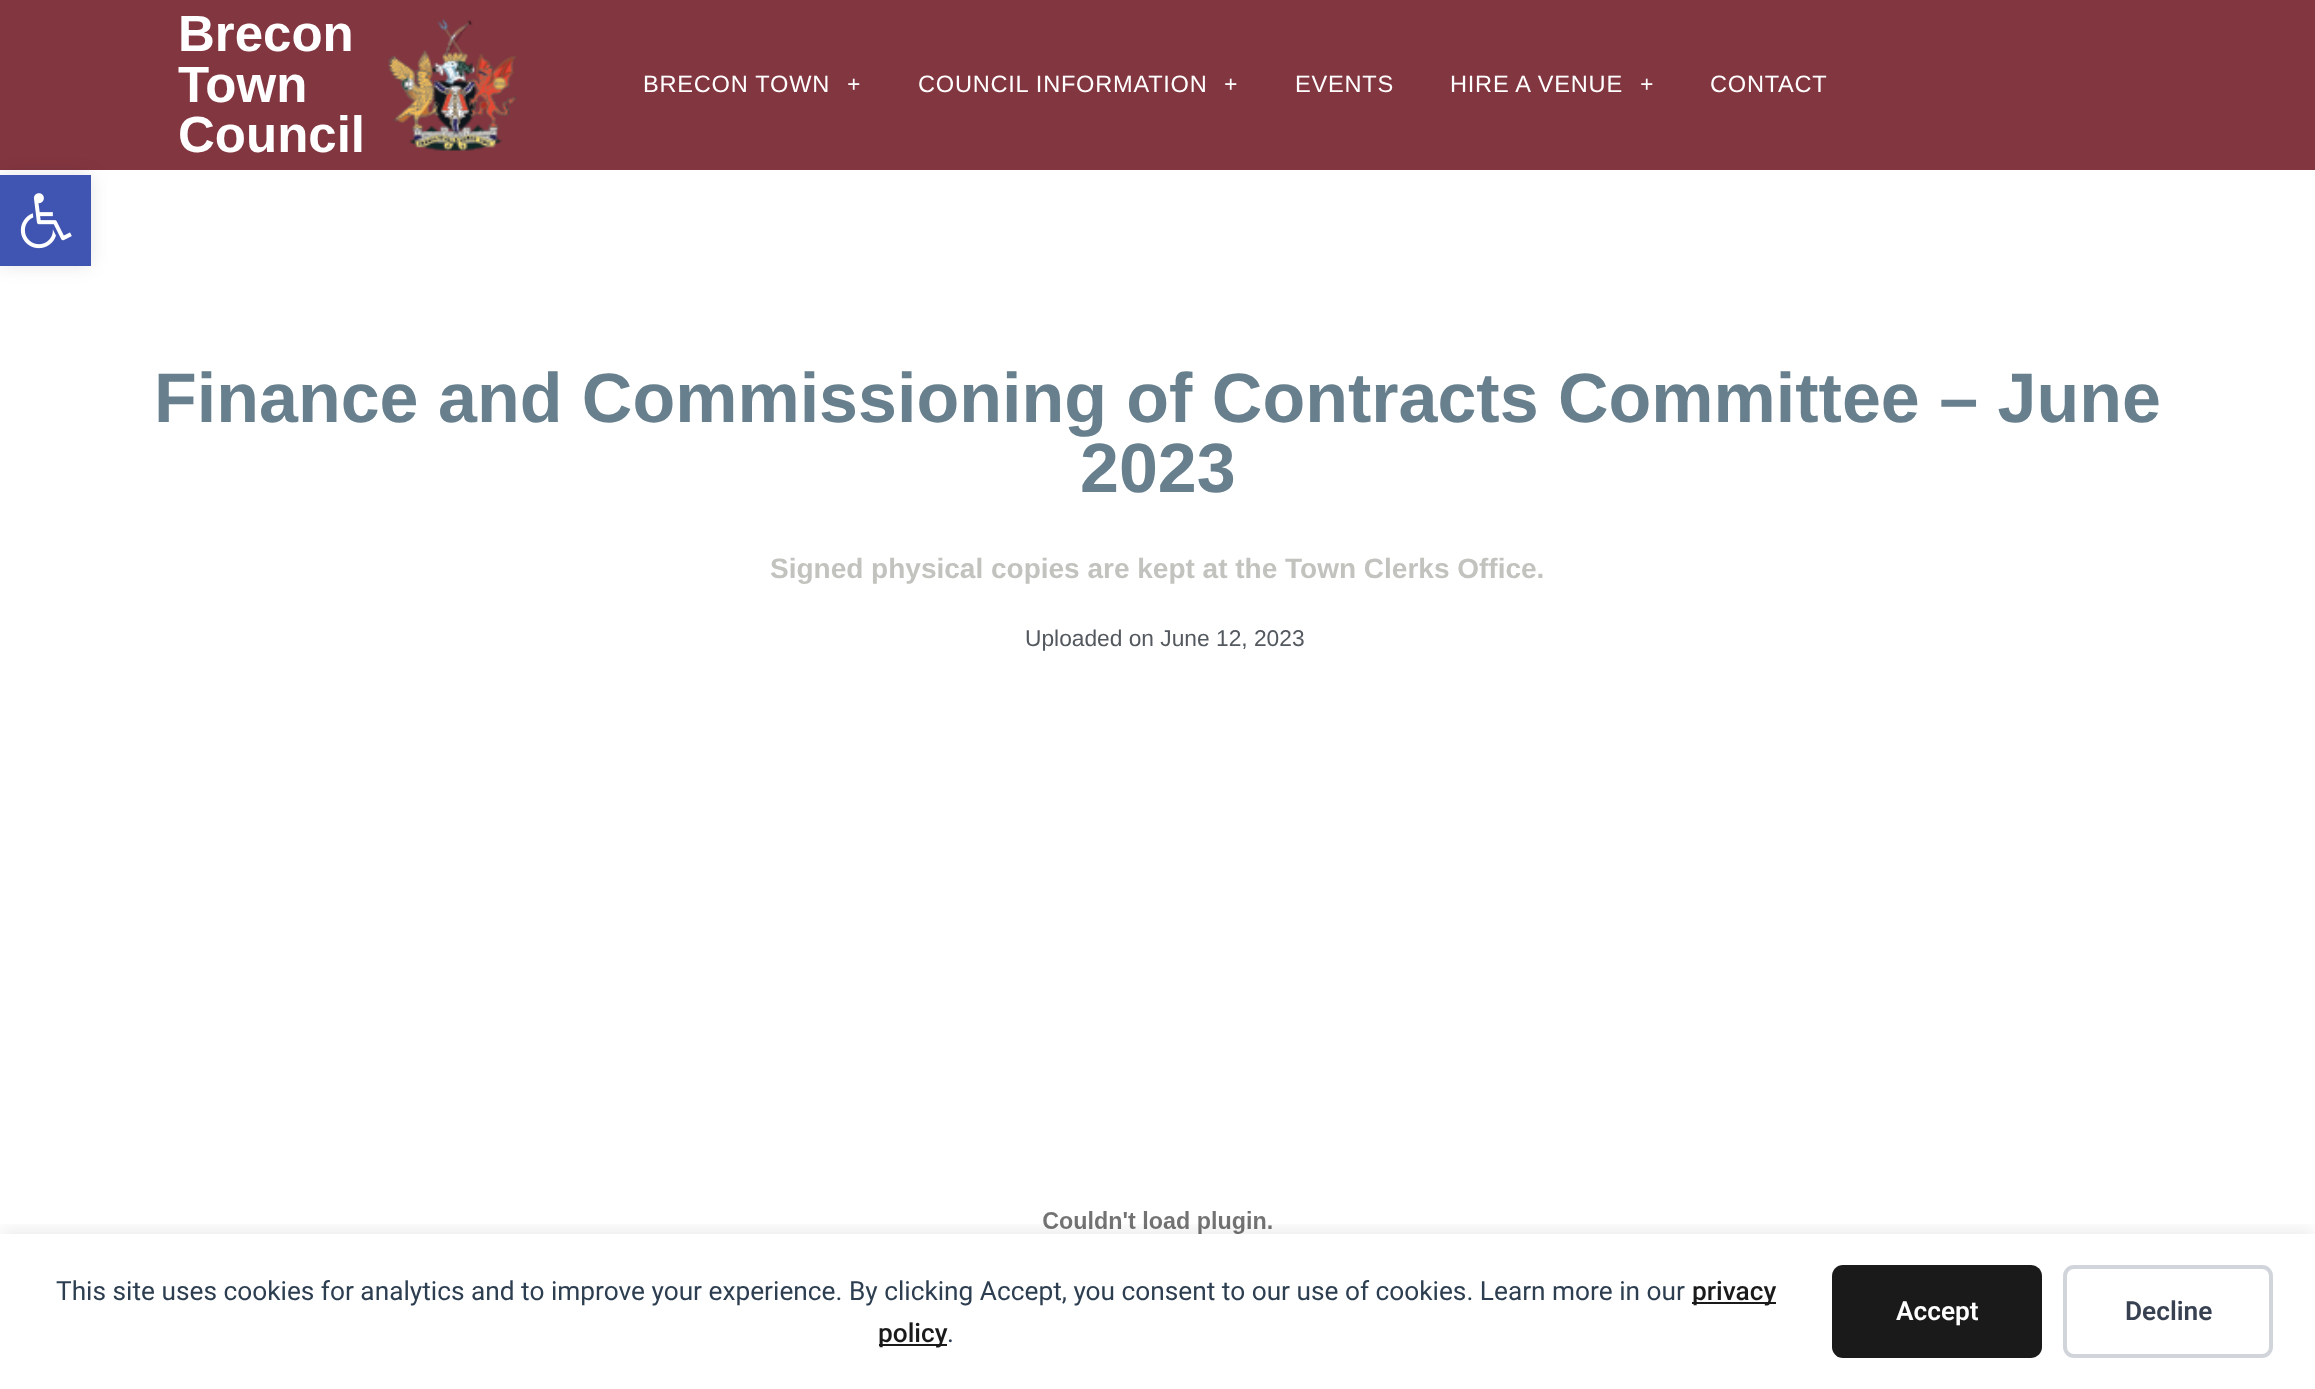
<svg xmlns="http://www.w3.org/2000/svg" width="2315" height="1389">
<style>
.a{font:bold 51px Liberation Sans;fill:#fff}
.b{font:23.6px Liberation Sans;letter-spacing:0.75px;fill:#fff}
.c{font:bold 23.6px Liberation Serif;letter-spacing:0.75px;fill:#fff}
.d{font:bold 70px Liberation Sans;fill:#68808d}
.e{font:bold 28px Liberation Sans;fill:#c2c3be}
.f{font:22.75px Liberation Sans;fill:#54595f}
.g{font:26.25px Roboto;fill:#2c3e50}
.h{font:500 26.25px Roboto;fill:#1a1a1a}
.i{font:600 26.25px Roboto;fill:#fff}
.j{font:600 26.25px Roboto;fill:#374151}
</style>
<defs>
<clipPath id="clip1"><path d="M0 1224h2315v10H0z"/></clipPath>
</defs>
<rect width="100%" height="100%" fill="#fff"/>
<path fill="#823640" d="M0 0h2315v170H0z"/>
<path fill="#0000001a" filter="blur(9px)" d="M0 175h91v91H0z"/>
<path fill="#4054b2" d="M0 175h91v91H0z"/>
<image href="1.png" x="20" y="193" width="52" height="56"/>
<image href="2.png" x="388" y="19" width="129" height="132"/>
<image href="3.png" x="1043" y="1211" width="229" height="23"/>
<g clip-path="url(#clip1)">
<path fill="#00000014" filter="blur(9px)" d="M0 1230h2315v156H0z"/>
</g>
<path fill="#1a1a1a" d="M1692 1302h84v2H1692z"/>
<path fill="#1a1a1a" d="M879 1344h68v2H879z"/>
<rect fill="#1a1a1a" x="1832" y="1265" width="210" height="93" rx="11"/>
<rect fill="none" stroke="#d1d5db" stroke-width="4" x="2065" y="1267" width="206" height="89" rx="9"/>
<text class="a" x="178" y="51">Brecon</text>
<text class="a" x="178" y="102">Town</text>
<text class="a" x="178" y="152">Council</text>
<text class="b" x="643" y="92">BRECON TOWN</text>
<text class="c" x="847" y="92">+</text>
<text class="b" x="918" y="92">COUNCIL INFORMATION</text>
<text class="c" x="1224" y="92">+</text>
<text class="b" x="1295" y="92">EVENTS</text>
<text class="b" x="1450" y="92">HIRE A VENUE</text>
<text class="c" x="1640" y="92">+</text>
<text class="b" x="1710" y="92">CONTACT</text>
<text class="d" x="154" y="422">Finance and Commissioning of Contracts Committee – June</text>
<text class="d" x="1080" y="492">2023</text>
<text class="e" x="770" y="578">Signed physical copies are kept at the Town Clerks Office.</text>
<text class="f" x="1025" y="646">Uploaded on June 12, 2023</text>
<text class="g" x="56" y="1300">This site uses cookies for analytics and to improve your experience. By clicking Accept, you consent to our use of cookies. Learn more in our</text>
<text class="h" x="1692" y="1300">privacy</text>
<text class="h" x="878" y="1342">policy</text>
<text class="g" x="947" y="1342">.</text>
<text class="i" x="1896" y="1320">Accept</text>
<text class="j" x="2125" y="1320">Decline</text>
</svg>
